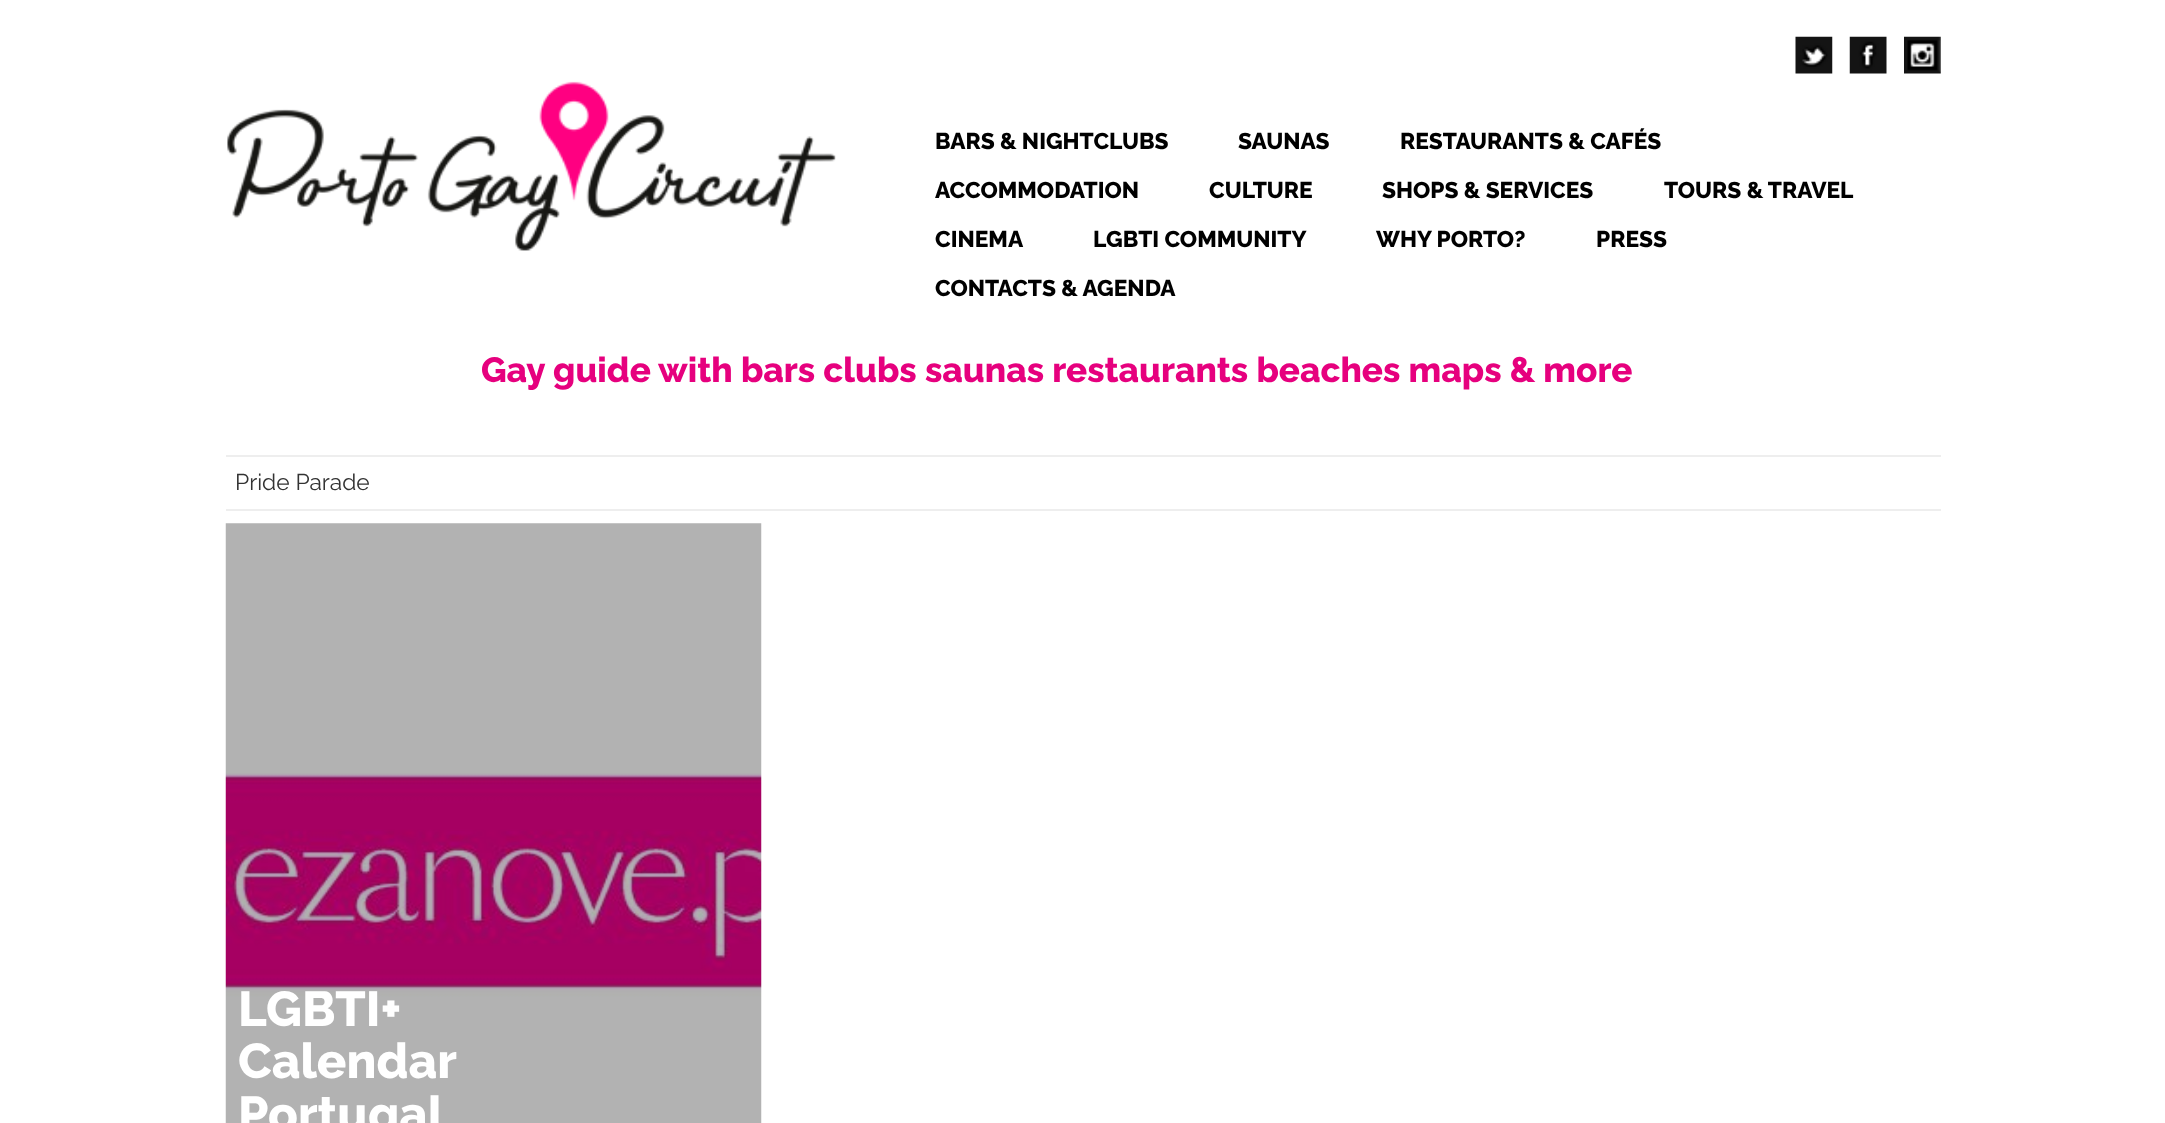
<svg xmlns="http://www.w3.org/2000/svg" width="2165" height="1123">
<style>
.a{font:800 22.75px Raleway;fill:#000}
.b{font:800 35px Raleway;fill:#e6007e}
.c{font:22.75px Raleway;fill:#333}
.d{font:800 49px Raleway;fill:#fff}
</style>
<rect width="100%" height="100%" fill="#fff"/>
<image href="1.png" x="227" y="81" width="609" height="170"/>
<image href="2.png" x="1795" y="36" width="38" height="38"/>
<image href="3.png" x="1849" y="36" width="38" height="38"/>
<image href="4.png" x="1904" y="36" width="37" height="38"/>
<path fill="#eee" d="M226 455h1715v2H226z"/>
<path fill="#eee" d="M226 509h1715v2H226z"/>
<image href="5.png" x="225" y="523" width="537" height="600"/>
<text class="a" x="935" y="149">BARS &amp; NIGHTCLUBS</text>
<text class="a" x="1238" y="149">SAUNAS</text>
<text class="a" x="1400" y="149">RESTAURANTS &amp; CAFÉS</text>
<text class="a" x="935" y="198">ACCOMMODATION</text>
<text class="a" x="1209" y="198">CULTURE</text>
<text class="a" x="1382" y="198">SHOPS &amp; SERVICES</text>
<text class="a" x="1664" y="198">TOURS &amp; TRAVEL</text>
<text class="a" x="935" y="247">CINEMA</text>
<text class="a" x="1093" y="247">LGBTI COMMUNITY</text>
<text class="a" x="1376" y="247">WHY PORTO?</text>
<text class="a" x="1596" y="247">PRESS</text>
<text class="a" x="935" y="296">CONTACTS &amp; AGENDA</text>
<text class="b" x="481" y="382">Gay guide with bars clubs saunas restaurants beaches maps &amp; more</text>
<text class="c" x="235" y="490">Pride Parade</text>
<text class="d" x="238" y="1026">LGBTI+</text>
<text class="d" x="238" y="1078">Calendar</text>
<text class="d" x="238" y="1131">Portugal</text>
</svg>
